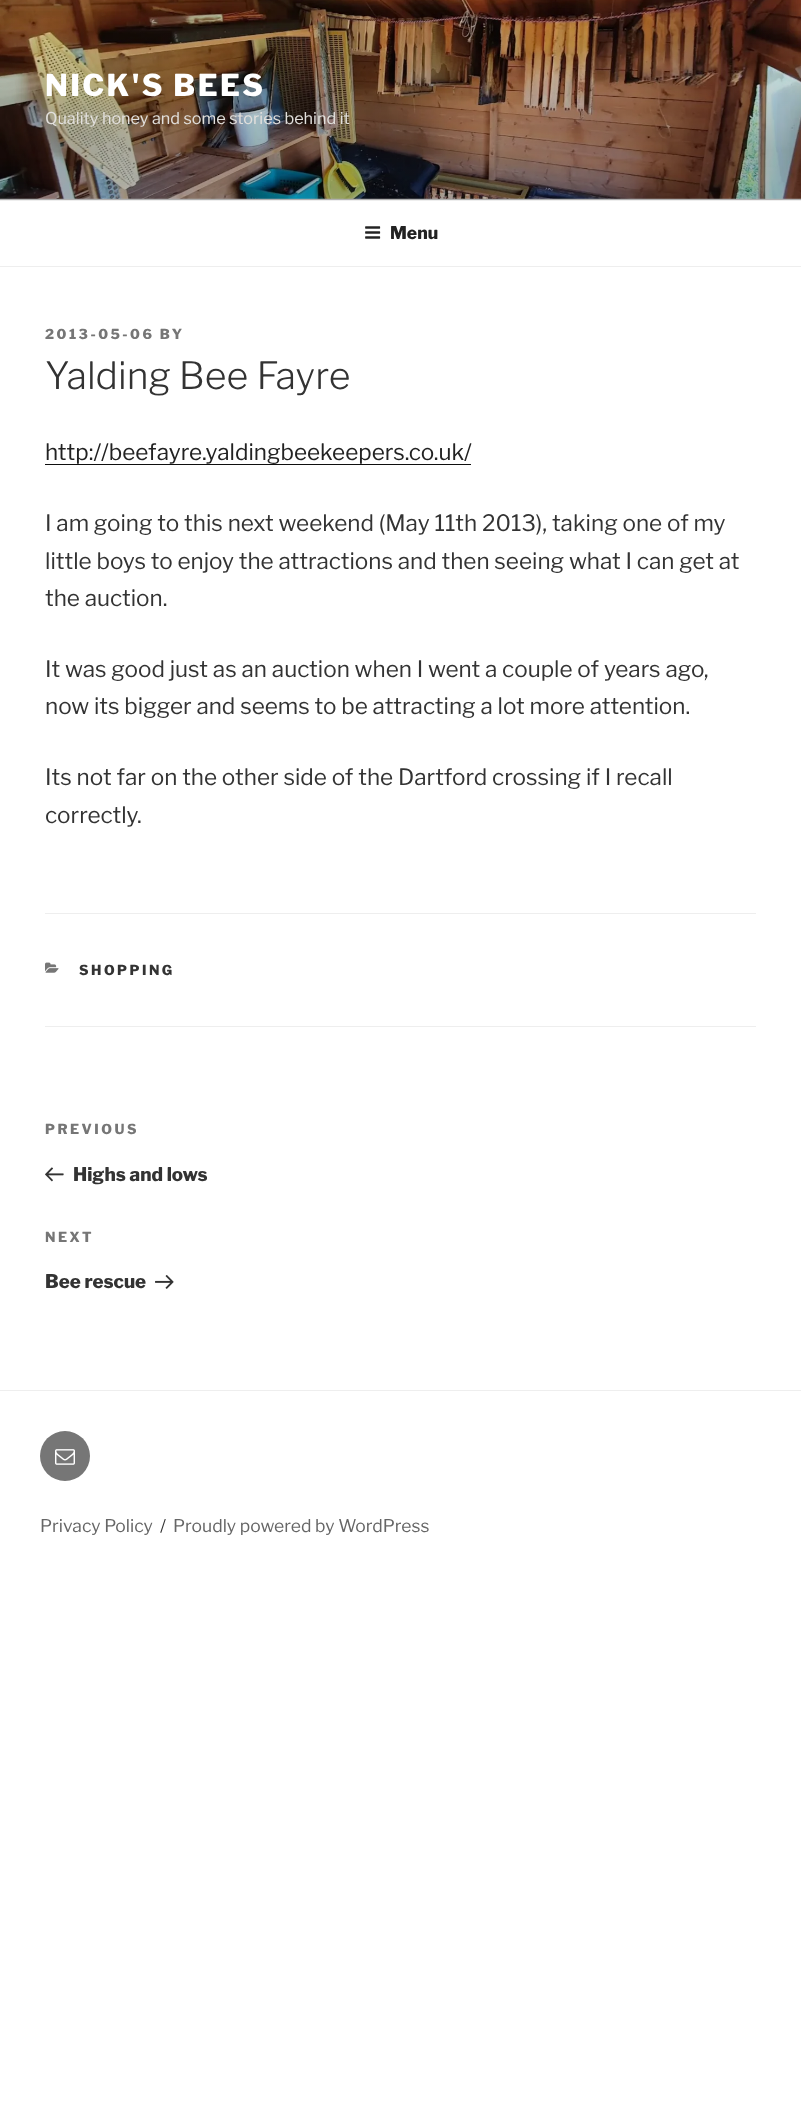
<svg xmlns="http://www.w3.org/2000/svg" width="801" height="2120">
<style>
.a{font:100 30px Libre Franklin;letter-spacing:2.4px;fill:#fff}
.b{font:100 16.25px 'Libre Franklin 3';fill:#e2e0dd}
.c{font:100 17.5px Libre Franklin;fill:#222}
.d{font:100 13.75px Libre Franklin;letter-spacing:2.5px;fill:#767676}
.e{font:100 37.5px 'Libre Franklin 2';fill:#333}
.f{font:100 22.5px 'Libre Franklin 3';fill:#222}
.g{font:100 22.5px 'Libre Franklin 3';fill:#333}
.h{font:100 13.75px Libre Franklin;letter-spacing:2.5px;fill:#333}
.i{font:100 18.75px Libre Franklin;fill:#333}
.j{font:100 17.5px 'Libre Franklin 3';fill:#666}
.k{font:100 17.5px 'Libre Franklin 3';fill:#333}
</style>
<defs>
<linearGradient id="g1" gradientUnits="userSpaceOnUse" x1="401" y1="0" x2="401" y2="200"><stop offset="0" stop-color="#000" stop-opacity="0"/><stop offset="0.75" stop-color="#000" stop-opacity="0.3"/><stop offset="1" stop-color="#000" stop-opacity="0.3"/></linearGradient>
</defs>
<rect width="100%" height="100%" fill="#fff"/>
<path fill="#fafafa" d="M0 198h801v2H0z"/>
<image href="1.png" x="0" y="0" width="801" height="199"/>
<path fill="url(#g1)" d="M0 11h801v189H0z"/>
<path fill="#eee" d="M0 200h801v1H0z"/>
<path fill="#eee" d="M0 266h801v1H0z"/>
<image href="2.png" x="365" y="226" width="16" height="13"/>
<path fill="#0f0f0f" d="M45 464h426v1H45z"/>
<path fill="#eee" d="M45 913h711v1H45z"/>
<path fill="#eee" d="M45 1026h711v1H45z"/>
<image href="3.png" x="45" y="962" width="14" height="11"/>
<image href="4.png" x="45" y="1167" width="19" height="15"/>
<image href="5.png" x="155" y="1275" width="19" height="14"/>
<path fill="#eee" d="M0 1390h801v1H0z"/>
<circle fill="#767676" cx="65" cy="1456" r="25"/>
<image href="6.png" x="55" y="1449" width="20" height="16"/>
<text class="a" x="45" y="96">NICK'S BEES</text>
<text class="b" x="45" y="124">Quality honey and some stories behind it</text>
<text class="c" x="390" y="239">Menu</text>
<text class="d" x="45" y="339">2013-05-06 BY</text>
<text class="e" x="45" y="389">Yalding Bee Fayre</text>
<text class="f" x="45" y="460">http://beefayre.yaldingbeekeepers.co.uk/</text>
<text class="g" x="45" y="531">I am going to this next weekend (May 11th 2013), taking one of my</text>
<text class="g" x="45" y="569">little boys to enjoy the attractions and then seeing what I can get at</text>
<text class="g" x="45" y="606">the auction.</text>
<text class="g" x="45" y="677">It was good just as an auction when I went a couple of years ago,</text>
<text class="g" x="45" y="714">now its bigger and seems to be attracting a lot more attention.</text>
<text class="g" x="45" y="785">Its not far on the other side of the Dartford crossing if I recall</text>
<text class="g" x="45" y="823">correctly.</text>
<text class="h" x="79" y="975">SHOPPING</text>
<text class="d" x="45" y="1134">PREVIOUS</text>
<text class="i" x="73" y="1181">Highs and lows</text>
<text class="d" x="45" y="1242">NEXT</text>
<text class="i" x="45" y="1288">Bee rescue</text>
<text class="j" x="40" y="1532">Privacy Policy</text>
<text class="k" x="160" y="1532">/</text>
<text class="j" x="173" y="1532">Proudly powered by WordPress</text>
</svg>
